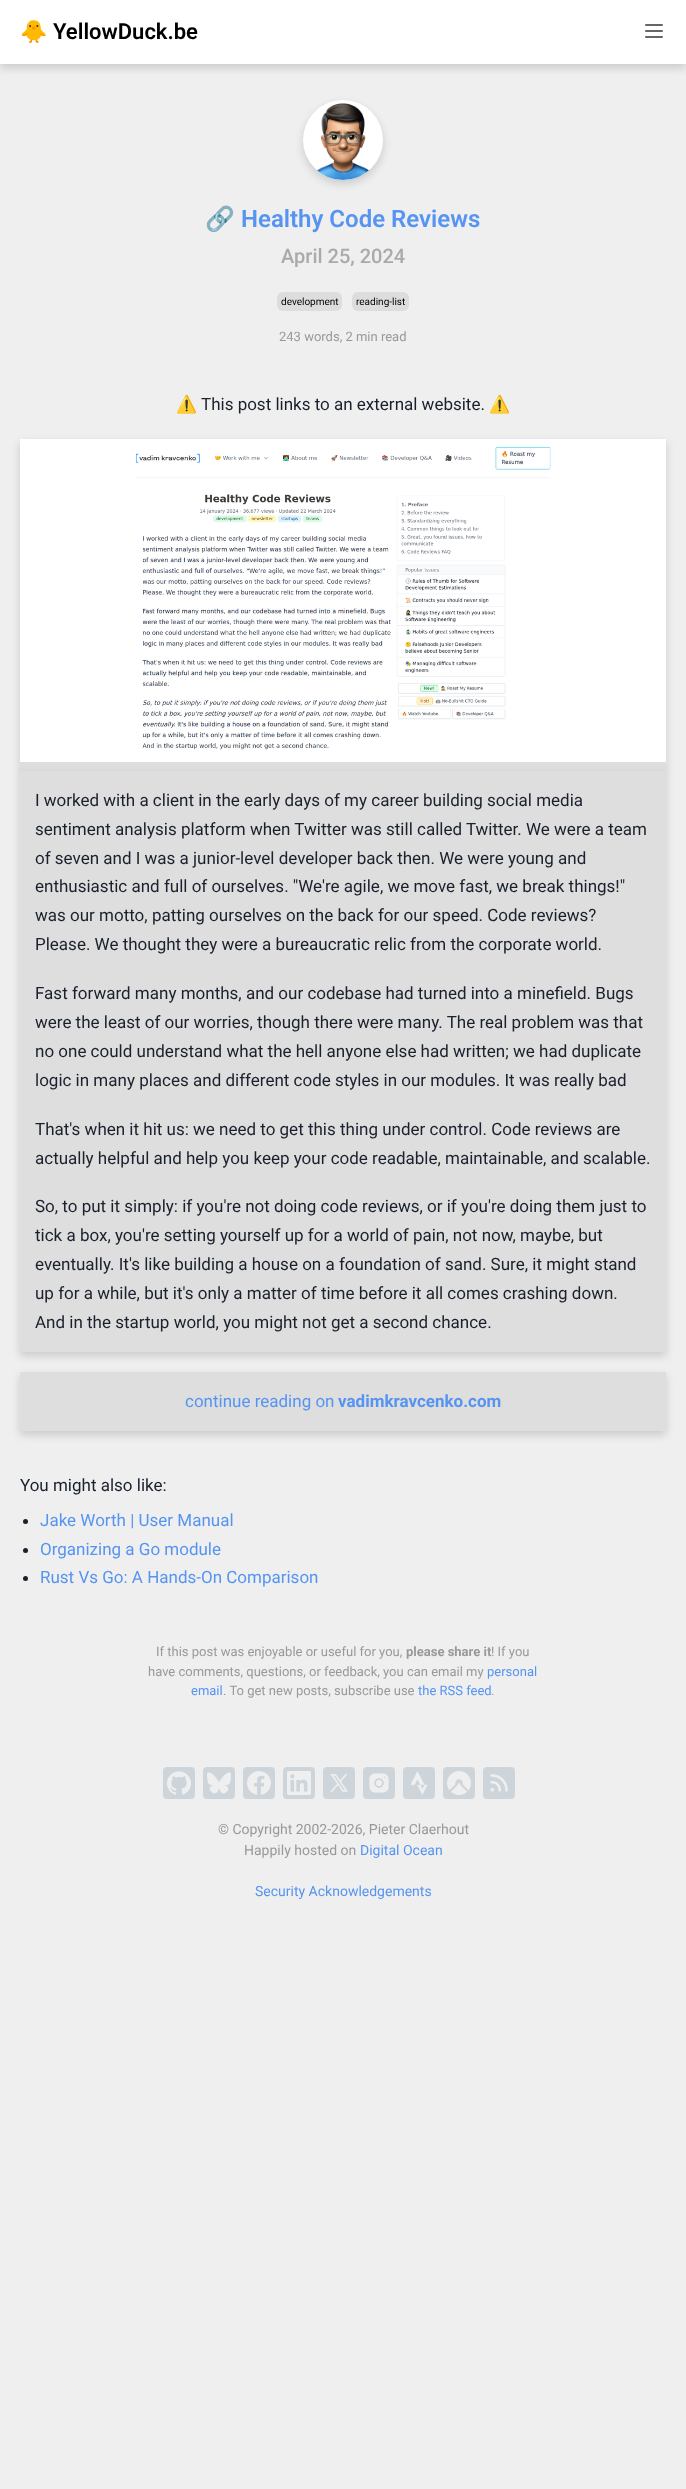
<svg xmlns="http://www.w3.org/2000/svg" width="686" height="2489">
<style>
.a{font:bold 22px Noto Color Emoji;fill:#000}
.b{font:600 22px Roboto;fill:#000}
.c{font:bold 24px Noto Color Emoji;fill:#5694f1}
.d{font:600 24px Roboto;fill:#5694f1}
.e{font:500 20px Roboto;fill:#aaa}
.f{font:10px Roboto;fill:#000}
.g{font:13px Roboto;fill:#999}
.h{font:17px Noto Color Emoji;fill:#1a202c}
.i{font:17px Roboto;fill:#1a202c}
.j{font:17px Roboto;fill:#5694f1}
.k{font:bold 17px Roboto;fill:#5694f1}
.l{font:bold 13px Roboto;fill:#999}
.m{font:13px Roboto;fill:#5694f1}
.n{font:14px Roboto;fill:#999}
.o{font:14px Roboto;fill:#5694f1}
</style>
<rect width="100%" height="100%" fill="#efefef"/>
<path fill="#00000026" filter="blur(4px)" d="M0 4h686v64H0z"/>
<path fill="#fff" d="M0 0h686v64H0z"/>
<image href="1.png" x="645" y="24" width="18" height="14"/>
<rect fill="#00000026" filter="blur(4px)" x="303" y="104" width="80" height="80" rx="40"/>
<circle fill="#fff" cx="343" cy="140" r="40"/>
<image href="2.png" x="317" y="103" width="52" height="77"/>
<rect fill="#ddd" x="277" y="292" width="65" height="19" rx="6"/>
<rect fill="#ddd" x="352" y="292" width="57" height="19" rx="6"/>
<path fill="#00000026" filter="blur(4px)" d="M20 443h646v332H20z"/>
<path fill="#dedede" d="M20 762h646v9H20z"/>
<image href="3.png" x="20" y="439" width="646" height="323"/>
<path fill="#00000026" filter="blur(4px)" d="M20 775h646v581H20z"/>
<path fill="#dedede" d="M20 771h646v581H20z"/>
<path fill="#00000026" filter="blur(4px)" d="M20 1376h646v59H20z"/>
<path fill="#dedede" d="M20 1372h646v59H20z"/>
<circle fill="#1a202c" cx="25.5" cy="1521.5" r="2.5"/>
<circle fill="#1a202c" cx="25.5" cy="1550.5" r="2.5"/>
<circle fill="#1a202c" cx="25.5" cy="1578.5" r="2.5"/>
<rect fill="#cdd4da" stroke="#cdd4da" stroke-width="4" x="165" y="1769" width="28" height="28" rx="2"/>
<image href="4.png" x="167" y="1771" width="24" height="24"/>
<rect fill="#cdd4da" stroke="#cdd4da" stroke-width="4" x="205" y="1769" width="28" height="28" rx="2"/>
<image href="5.png" x="207" y="1772" width="24" height="22"/>
<rect fill="#cdd4da" stroke="#cdd4da" stroke-width="4" x="245" y="1769" width="28" height="28" rx="2"/>
<image href="6.png" x="247" y="1771" width="24" height="24"/>
<rect fill="#cdd4da" stroke="#cdd4da" stroke-width="4" x="285" y="1769" width="28" height="28" rx="2"/>
<image href="7.png" x="287" y="1771" width="24" height="24"/>
<rect fill="#cdd4da" stroke="#cdd4da" stroke-width="4" x="325" y="1769" width="28" height="28" rx="2"/>
<image href="8.png" x="330" y="1774" width="18" height="18"/>
<rect fill="#cdd4da" stroke="#cdd4da" stroke-width="4" x="365" y="1769" width="28" height="28" rx="2"/>
<image href="9.png" x="369" y="1773" width="20" height="20"/>
<rect fill="#cdd4da" stroke="#cdd4da" stroke-width="4" x="405" y="1769" width="28" height="28" rx="2"/>
<image href="10.png" x="410" y="1771" width="18" height="24"/>
<rect fill="#cdd4da" stroke="#cdd4da" stroke-width="4" x="445" y="1769" width="28" height="28" rx="2"/>
<image href="11.png" x="447" y="1771" width="24" height="24"/>
<rect fill="#cdd4da" stroke="#cdd4da" stroke-width="4" x="485" y="1769" width="28" height="28" rx="2"/>
<image href="12.png" x="490" y="1774" width="18" height="18"/>
<text class="a" x="20" y="39">🐥</text>
<text class="b" x="53" y="39">YellowDuck.be</text>
<text class="c" x="205" y="227">🔗</text>
<text class="d" x="241" y="227">Healthy Code Reviews</text>
<text class="e" x="281" y="263">April 25, 2024</text>
<text class="f" x="281" y="305">development</text>
<text class="f" x="356" y="305">reading-list</text>
<text class="g" x="279" y="341">243 words, 2 min read</text>
<text class="h" x="176" y="410">⚠️</text>
<text class="i" x="201" y="410">This post links to an external website.</text>
<text class="h" x="489" y="410">⚠️</text>
<text class="i" x="35" y="806">I worked with a client in the early days of my career building social media</text>
<text class="i" x="35" y="835">sentiment analysis platform when Twitter was still called Twitter. We were a team</text>
<text class="i" x="35" y="864">of seven and I was a junior-level developer back then. We were young and</text>
<text class="i" x="35" y="892">enthusiastic and full of ourselves. "We're agile, we move fast, we break things!"</text>
<text class="i" x="35" y="921">was our motto, patting ourselves on the back for our speed. Code reviews?</text>
<text class="i" x="35" y="950">Please. We thought they were a bureaucratic relic from the corporate world.</text>
<text class="i" x="35" y="999">Fast forward many months, and our codebase had turned into a minefield. Bugs</text>
<text class="i" x="35" y="1028">were the least of our worries, though there were many. The real problem was that</text>
<text class="i" x="35" y="1057">no one could understand what the hell anyone else had written; we had duplicate</text>
<text class="i" x="35" y="1086">logic in many places and different code styles in our modules. It was really bad</text>
<text class="i" x="35" y="1135">That's when it hit us: we need to get this thing under control. Code reviews are</text>
<text class="i" x="35" y="1164">actually helpful and help you keep your code readable, maintainable, and scalable.</text>
<text class="i" x="35" y="1212">So, to put it simply: if you're not doing code reviews, or if you're doing them just to</text>
<text class="i" x="35" y="1241">tick a box, you're setting yourself up for a world of pain, not now, maybe, but</text>
<text class="i" x="35" y="1270">eventually. It's like building a house on a foundation of sand. Sure, it might stand</text>
<text class="i" x="35" y="1299">up for a while, but it's only a matter of time before it all comes crashing down.</text>
<text class="i" x="35" y="1328">And in the startup world, you might not get a second chance.</text>
<text class="j" x="185" y="1407">continue reading on</text>
<text class="k" x="338" y="1407">vadimkravcenko.com</text>
<text class="i" x="20" y="1491">You might also like:</text>
<text class="j" x="40" y="1526">Jake Worth | User Manual</text>
<text class="j" x="40" y="1555">Organizing a Go module</text>
<text class="j" x="40" y="1583">Rust Vs Go: A Hands-On Comparison</text>
<text class="g" x="156" y="1656">If this post was enjoyable or useful for you,</text>
<text class="l" x="406" y="1656">please share it</text>
<text class="g" x="491" y="1656">! If you</text>
<text class="g" x="148" y="1676">have comments, questions, or feedback, you can email my</text>
<text class="m" x="487" y="1676">personal</text>
<text class="m" x="191" y="1695">email</text>
<text class="g" x="223" y="1695">. To get new posts, subscribe use</text>
<text class="m" x="418" y="1695">the RSS feed</text>
<text class="g" x="491" y="1695">.</text>
<text class="n" x="218" y="1834">© Copyright 2002-2026, Pieter Claerhout</text>
<text class="n" x="244" y="1855">Happily hosted on</text>
<text class="o" x="360" y="1855">Digital Ocean</text>
<text class="o" x="255" y="1896">Security Acknowledgements</text>
</svg>
